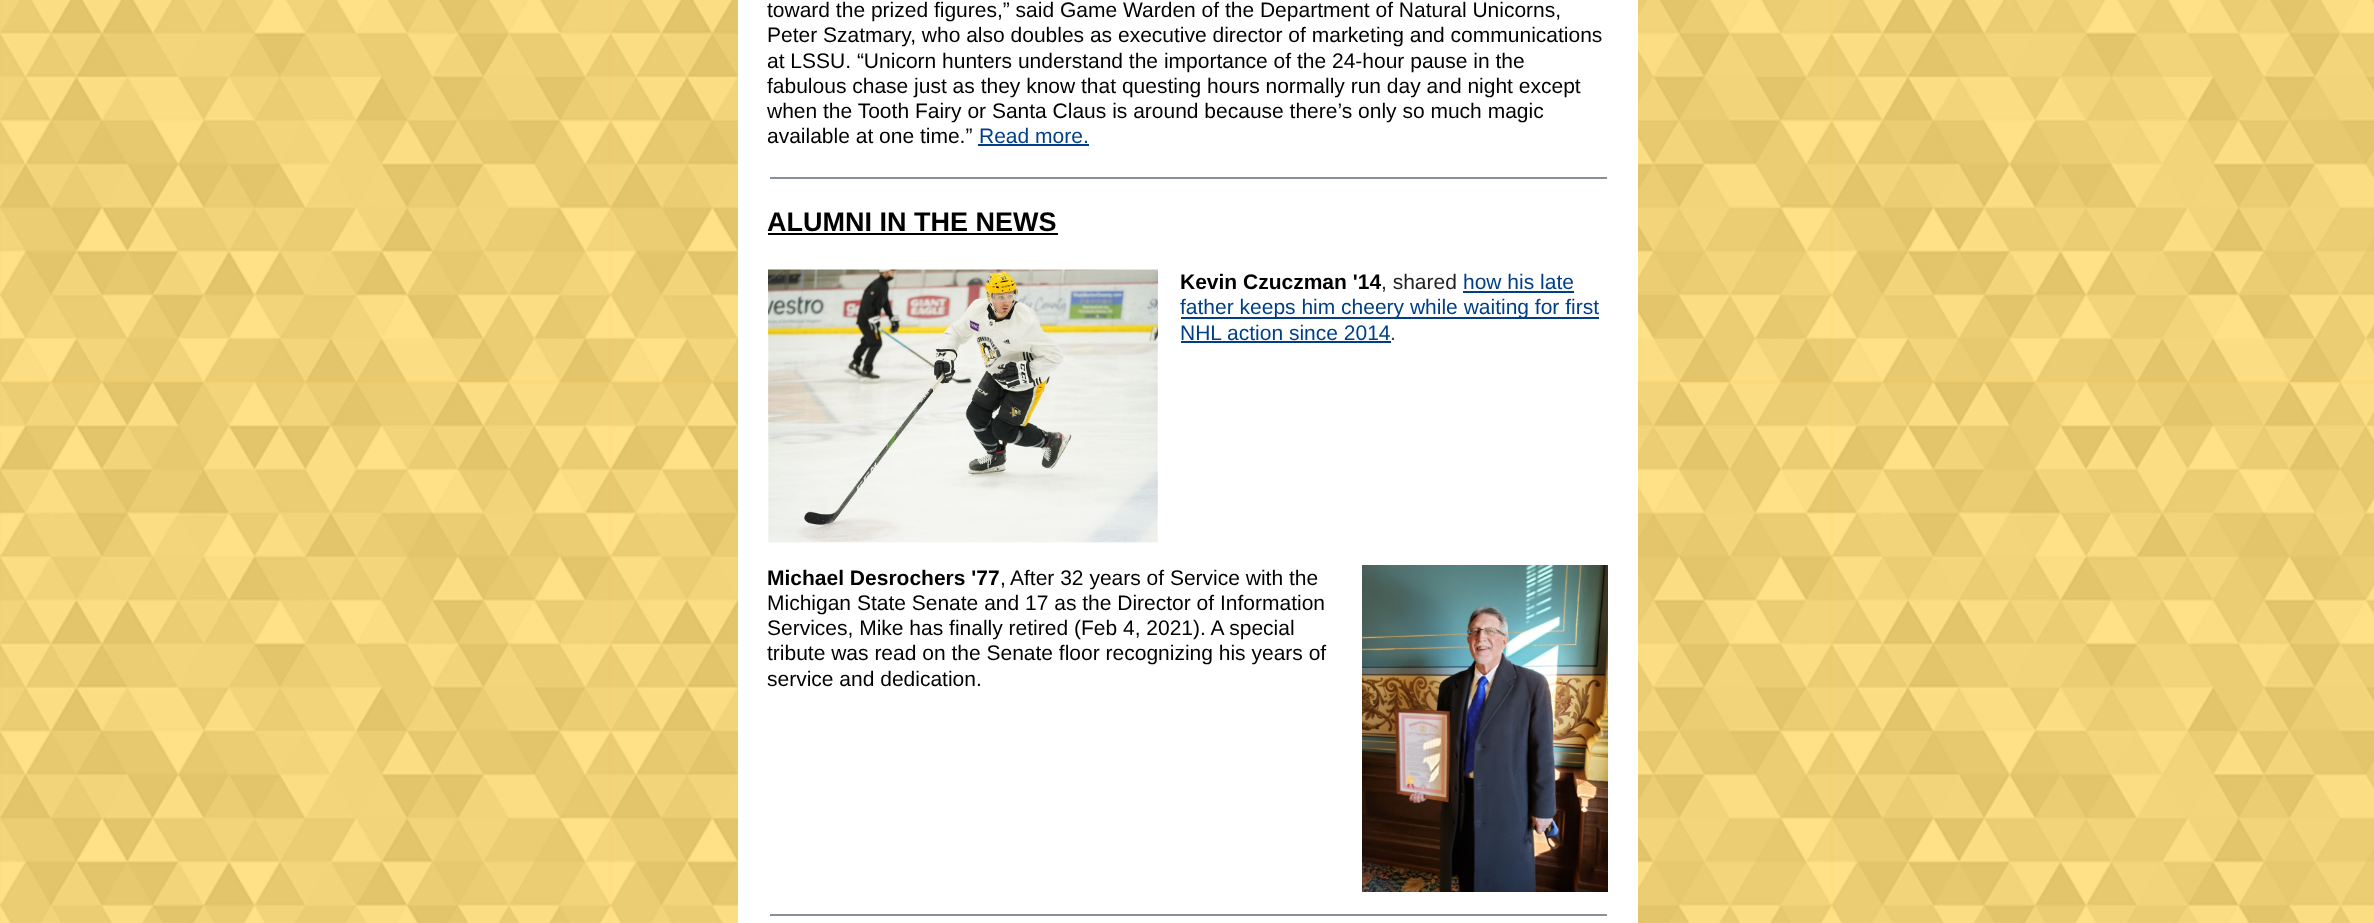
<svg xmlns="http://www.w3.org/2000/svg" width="2374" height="923">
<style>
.a{font:21px Liberation Sans;fill:#000}
.b{font:21px Liberation Sans;fill:#003f87}
.c{font:bold 27px Liberation Sans;fill:#000}
.d{font:bold 21px Liberation Sans;fill:#000}
.e{font:21px Liberation Sans;fill:#222}
.f{font:21px Liberation Sans;fill:#403f42}
</style>
<rect width="100%" height="100%" fill="#ffc61e"/>
<image href="1.png" x="0" y="0" width="2374" height="923"/>
<path fill="#fff" d="M738 0h900v923H738z"/>
<path fill="#003f87" d="M978 144h111v2H978z"/>
<path fill="#869198" d="M770 177h837v2H770z"/>
<path fill="#000" d="M768 233h290v2H768z"/>
<image href="2.png" x="768" y="269" width="390" height="274"/>
<path fill="#003f87" d="M1463 291h111v2H1463z"/>
<path fill="#003f87" d="M1181 317h418v2H1181z"/>
<path fill="#003f87" d="M1181 341h210v2H1181z"/>
<image href="3.png" x="1362" y="565" width="246" height="327"/>
<path fill="#869198" d="M770 914h837v2H770z"/>
<text class="a" x="767" y="17">toward the prized figures,” said Game Warden of the Department of Natural Unicorns,</text>
<text class="a" x="767" y="42">Peter Szatmary, who also doubles as executive director of marketing and communications</text>
<text class="a" x="767" y="68">at LSSU. “Unicorn hunters understand the importance of the 24-hour pause in the</text>
<text class="a" x="767" y="93">fabulous chase just as they know that questing hours normally run day and night except</text>
<text class="a" x="767" y="118">when the Tooth Fairy or Santa Claus is around because there’s only so much magic</text>
<text class="a" x="767" y="143">available at one time.”</text>
<text class="b" x="979" y="143">Read more.</text>
<text class="c" x="767" y="231">ALUMNI IN THE NEWS</text>
<text class="d" x="1180" y="289">Kevin Czuczman '14</text>
<text class="e" x="1381" y="289">, shared</text>
<text class="b" x="1463" y="289">how his late</text>
<text class="b" x="1180" y="314">father keeps him cheery while waiting for first</text>
<text class="b" x="1180" y="340">NHL action since 2014</text>
<text class="f" x="1390" y="340">.</text>
<text class="d" x="767" y="585">Michael Desrochers '77</text>
<text class="a" x="1000" y="585">,</text>
<text class="a" x="1010" y="585">After 32 years of Service with the</text>
<text class="a" x="767" y="610">Michigan State Senate and 17 as the Director of Information</text>
<text class="a" x="767" y="635">Services, Mike has finally retired (Feb 4, 2021). A special</text>
<text class="a" x="767" y="660">tribute was read on the Senate floor recognizing his years of</text>
<text class="a" x="767" y="686">service and dedication.</text>
</svg>
